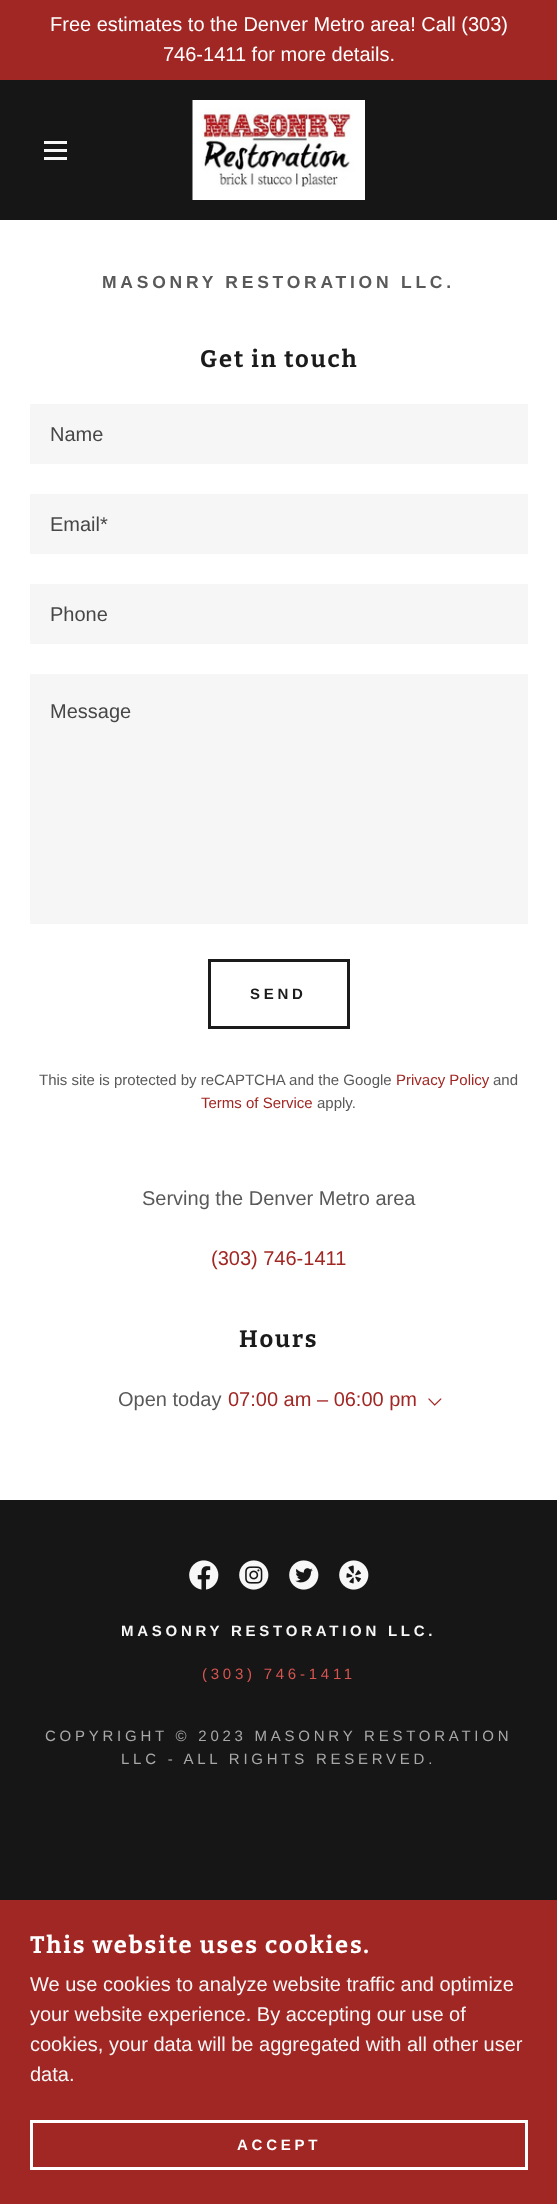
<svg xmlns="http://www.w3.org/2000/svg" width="557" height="2204">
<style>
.a{font:20px Liberation Sans;fill:#fff}
.b{font:bold 17.5px Liberation Sans;letter-spacing:3.75px;fill:#595959}
.c{font:100 23.75px Bitter;letter-spacing:1.9px;fill:#1b1b1b}
.d{font:20px Liberation Sans;fill:#474747}
.e{font:bold 15px Liberation Sans;letter-spacing:3.75px;fill:#1b1b1b}
.f{font:15px Liberation Sans;fill:#595959}
.g{font:15px Liberation Sans;fill:#a12724}
.h{font:20px Liberation Sans;fill:#595959}
.i{font:20px Liberation Sans;fill:#a12724}
.j{font:bold 15px Liberation Sans;letter-spacing:3.75px;fill:#f7f7f7}
.k{font:15px Liberation Sans;letter-spacing:3.75px;fill:#d65551}
.l{font:15px Liberation Sans;letter-spacing:3.75px;fill:#a9a9a9}
.m{font:100 23.75px Bitter;letter-spacing:1.9px;fill:#fff}
.n{font:20px Liberation Sans;fill:#f7f7f7}
.o{font:bold 15px Liberation Sans;letter-spacing:3.75px;fill:#fff}
</style>
<rect width="100%" height="100%" fill="#161616"/>
<path fill="#a12724" d="M0 0h557v80H0z"/>
<path fill="#f7f7f7" d="M44 141h23v3H44z"/>
<path fill="#f7f7f7" d="M44 149h23v3H44z"/>
<path fill="#f7f7f7" d="M44 157h23v3H44z"/>
<image href="1.png" x="192" y="100" width="173" height="100"/>
<path fill="#fff" d="M0 220h557v1280H0z"/>
<path fill="#f6f6f6" d="M30 404h498v60H30z"/>
<path fill="#f6f6f6" d="M30 494h498v60H30z"/>
<path fill="#f6f6f6" d="M30 584h498v60H30z"/>
<path fill="#f6f6f6" d="M30 674h498v250H30z"/>
<path fill="none" stroke="#1b1b1b" stroke-width="3" d="M209.5 960.5h139v67H209.5z"/>
<image href="2.png" x="428" y="1398" width="14" height="8"/>
<image href="3.png" x="189" y="1560" width="30" height="30"/>
<image href="4.png" x="239" y="1560" width="30" height="30"/>
<image href="5.png" x="289" y="1560" width="30" height="30"/>
<image href="6.png" x="339" y="1560" width="30" height="30"/>
<path fill="#a12724" d="M0 1900h557v304H0z"/>
<path fill="none" stroke="#fff" stroke-width="3" d="M31.5 2121.5h495v47H31.5z"/>
<text class="a" x="50" y="31">Free estimates to the Denver Metro area! Call (303)</text>
<text class="a" x="163" y="61">746-1411 for more details.</text>
<text class="b" x="102" y="288">MASONRY RESTORATION LLC.</text>
<text class="c" x="200" y="367">Get in touch</text>
<text class="d" x="50" y="441">Name</text>
<text class="d" x="50" y="531">Email*</text>
<text class="d" x="50" y="621">Phone</text>
<text class="d" x="50" y="718">Message</text>
<text class="e" x="250" y="999">SEND</text>
<text class="f" x="39" y="1085">This site is protected by reCAPTCHA and the Google</text>
<text class="g" x="396" y="1085">Privacy Policy</text>
<text class="f" x="493" y="1085">and</text>
<text class="g" x="201" y="1108">Terms of Service</text>
<text class="f" x="317" y="1108">apply.</text>
<text class="h" x="142" y="1205">Serving the Denver Metro area</text>
<text class="i" x="211" y="1265">(303) 746-1411</text>
<text class="c" x="239" y="1347">Hours</text>
<text class="h" x="118" y="1406">Open today</text>
<text class="i" x="228" y="1406">07:00 am – 06:00 pm</text>
<text class="j" x="121" y="1636">MASONRY RESTORATION LLC.</text>
<text class="k" x="202" y="1679">(303) 746-1411</text>
<text class="l" x="45" y="1741">COPYRIGHT © 2023 MASONRY RESTORATION</text>
<text class="l" x="121" y="1764">LLC - ALL RIGHTS RESERVED.</text>
<text class="m" x="30" y="1953">This website uses cookies.</text>
<text class="n" x="30" y="1991">We use cookies to analyze website traffic and optimize</text>
<text class="n" x="30" y="2021">your website experience. By accepting our use of</text>
<text class="n" x="30" y="2051">cookies, your data will be aggregated with all other user</text>
<text class="n" x="30" y="2081">data.</text>
<text class="o" x="237" y="2150">ACCEPT</text>
</svg>
